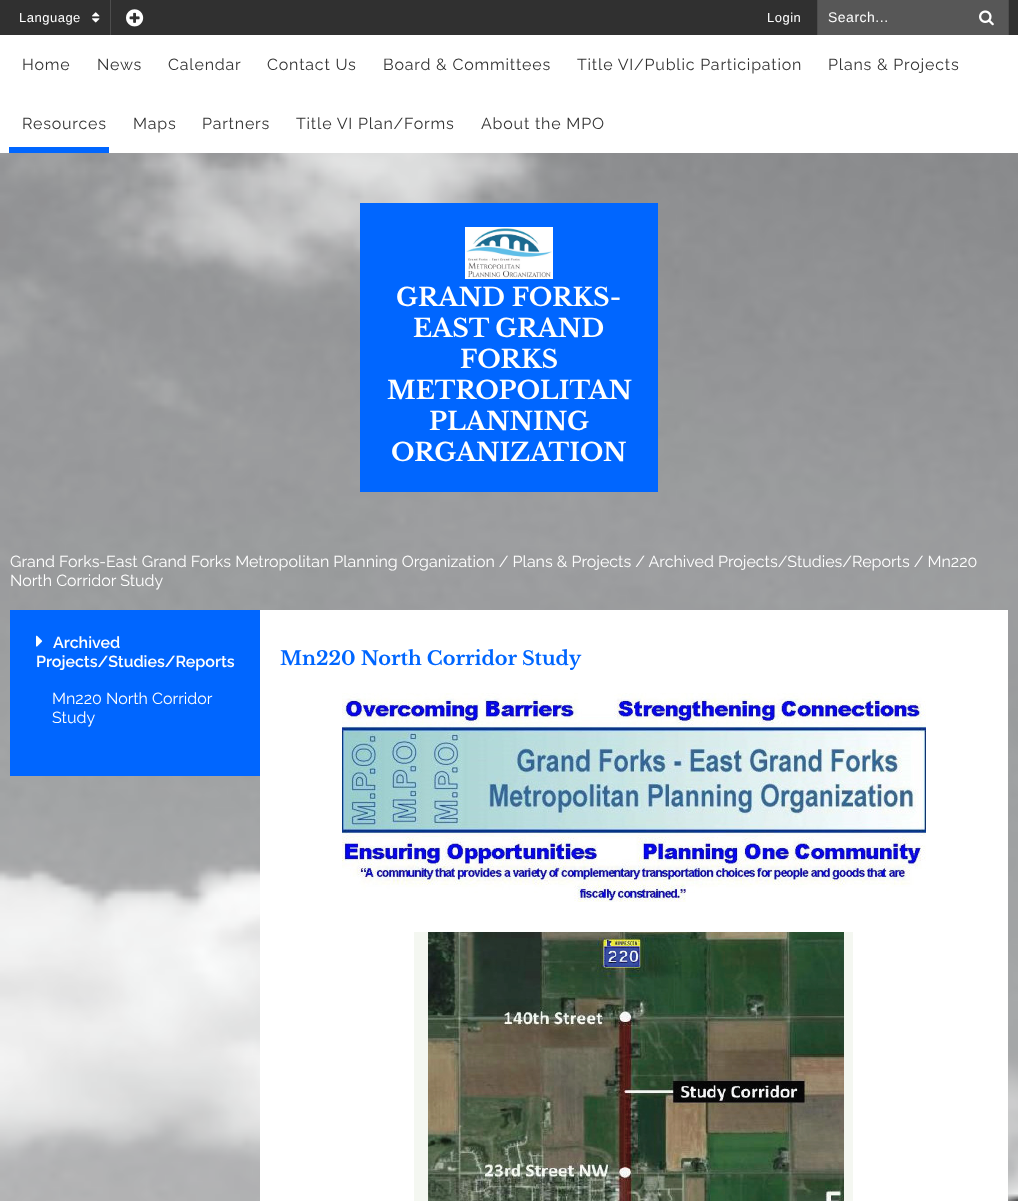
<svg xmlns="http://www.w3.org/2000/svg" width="1018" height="1201">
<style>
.a{font:13px Liberation Sans;letter-spacing:0.5px;fill:#fff}
.b{font:14px Liberation Sans;letter-spacing:0.5px;fill:#fff}
.c{font:16px Raleway;letter-spacing:0.8px;fill:#333}
.d{font:bold 25px Libre Baskerville;fill:#fff}
.e{font:16px Raleway;fill:#fff}
.f{font:600 16px Raleway;fill:#fff}
.g{font:bold 19.25px Libre Baskerville;fill:#06f}
</style>
<rect width="100%" height="100%" fill="#fff"/>
<image href="1.png" x="0" y="153" width="1018" height="1048"/>
<path fill="#303030" d="M0 0h1018v35H0z"/>
<path fill="#4d4d4d" d="M110 0h1v35H110z"/>
<image href="2.png" x="92" y="12" width="8" height="11"/>
<image href="3.png" x="126" y="9" width="18" height="18"/>
<path fill="#4d4d4d" d="M817 0h1v35H817z"/>
<path fill="#4d4d4d" d="M1008 0h1v35H1008z"/>
<path fill="#575757" d="M818 0h190v35H818z"/>
<image href="4.png" x="979" y="10" width="15" height="16"/>
<path fill="#06f" d="M9 147h100v6H9z"/>
<path fill="#06f" d="M360 203h298v289H360z"/>
<image href="5.png" x="465" y="227" width="88" height="52"/>
<path fill="#06f" d="M10 610h250v166H10z"/>
<image href="6.png" x="36" y="635" width="7" height="12"/>
<path fill="#fff" d="M260 610h748v591H260z"/>
<image href="7.png" x="342" y="693" width="584" height="209"/>
<image href="8.png" x="414" y="932" width="439" height="269"/>
<text class="a" x="19" y="22">Language</text>
<text class="a" x="767" y="22">Login</text>
<text class="b" x="828" y="22">Search...</text>
<text class="c" x="22" y="70">Home</text>
<text class="c" x="97" y="70">News</text>
<text class="c" x="168" y="70">Calendar</text>
<text class="c" x="267" y="70">Contact Us</text>
<text class="c" x="383" y="70">Board &amp; Committees</text>
<text class="c" x="577" y="70">Title VI/Public Participation</text>
<text class="c" x="828" y="70">Plans &amp; Projects</text>
<text class="c" x="22" y="129">Resources</text>
<text class="c" x="133" y="129">Maps</text>
<text class="c" x="202" y="129">Partners</text>
<text class="c" x="296" y="129">Title VI Plan/Forms</text>
<text class="c" x="481" y="129">About the MPO</text>
<text class="d" x="396" y="306">GRAND FORKS-</text>
<text class="d" x="413" y="337">EAST GRAND</text>
<text class="d" x="460" y="368">FORKS</text>
<text class="d" x="387" y="399">METROPOLITAN</text>
<text class="d" x="429" y="430">PLANNING</text>
<text class="d" x="391" y="461">ORGANIZATION</text>
<text class="e" x="10" y="567">Grand Forks-East Grand Forks Metropolitan Planning Organization / Plans &amp; Projects / Archived Projects/Studies/Reports / Mn220</text>
<text class="e" x="10" y="586">North Corridor Study</text>
<text class="f" x="53" y="648">Archived</text>
<text class="f" x="36" y="667">Projects/Studies/Reports</text>
<text class="e" x="52" y="704">Mn220 North Corridor</text>
<text class="e" x="52" y="723">Study</text>
<text class="g" x="280" y="665">Mn220 North Corridor Study</text>
</svg>
